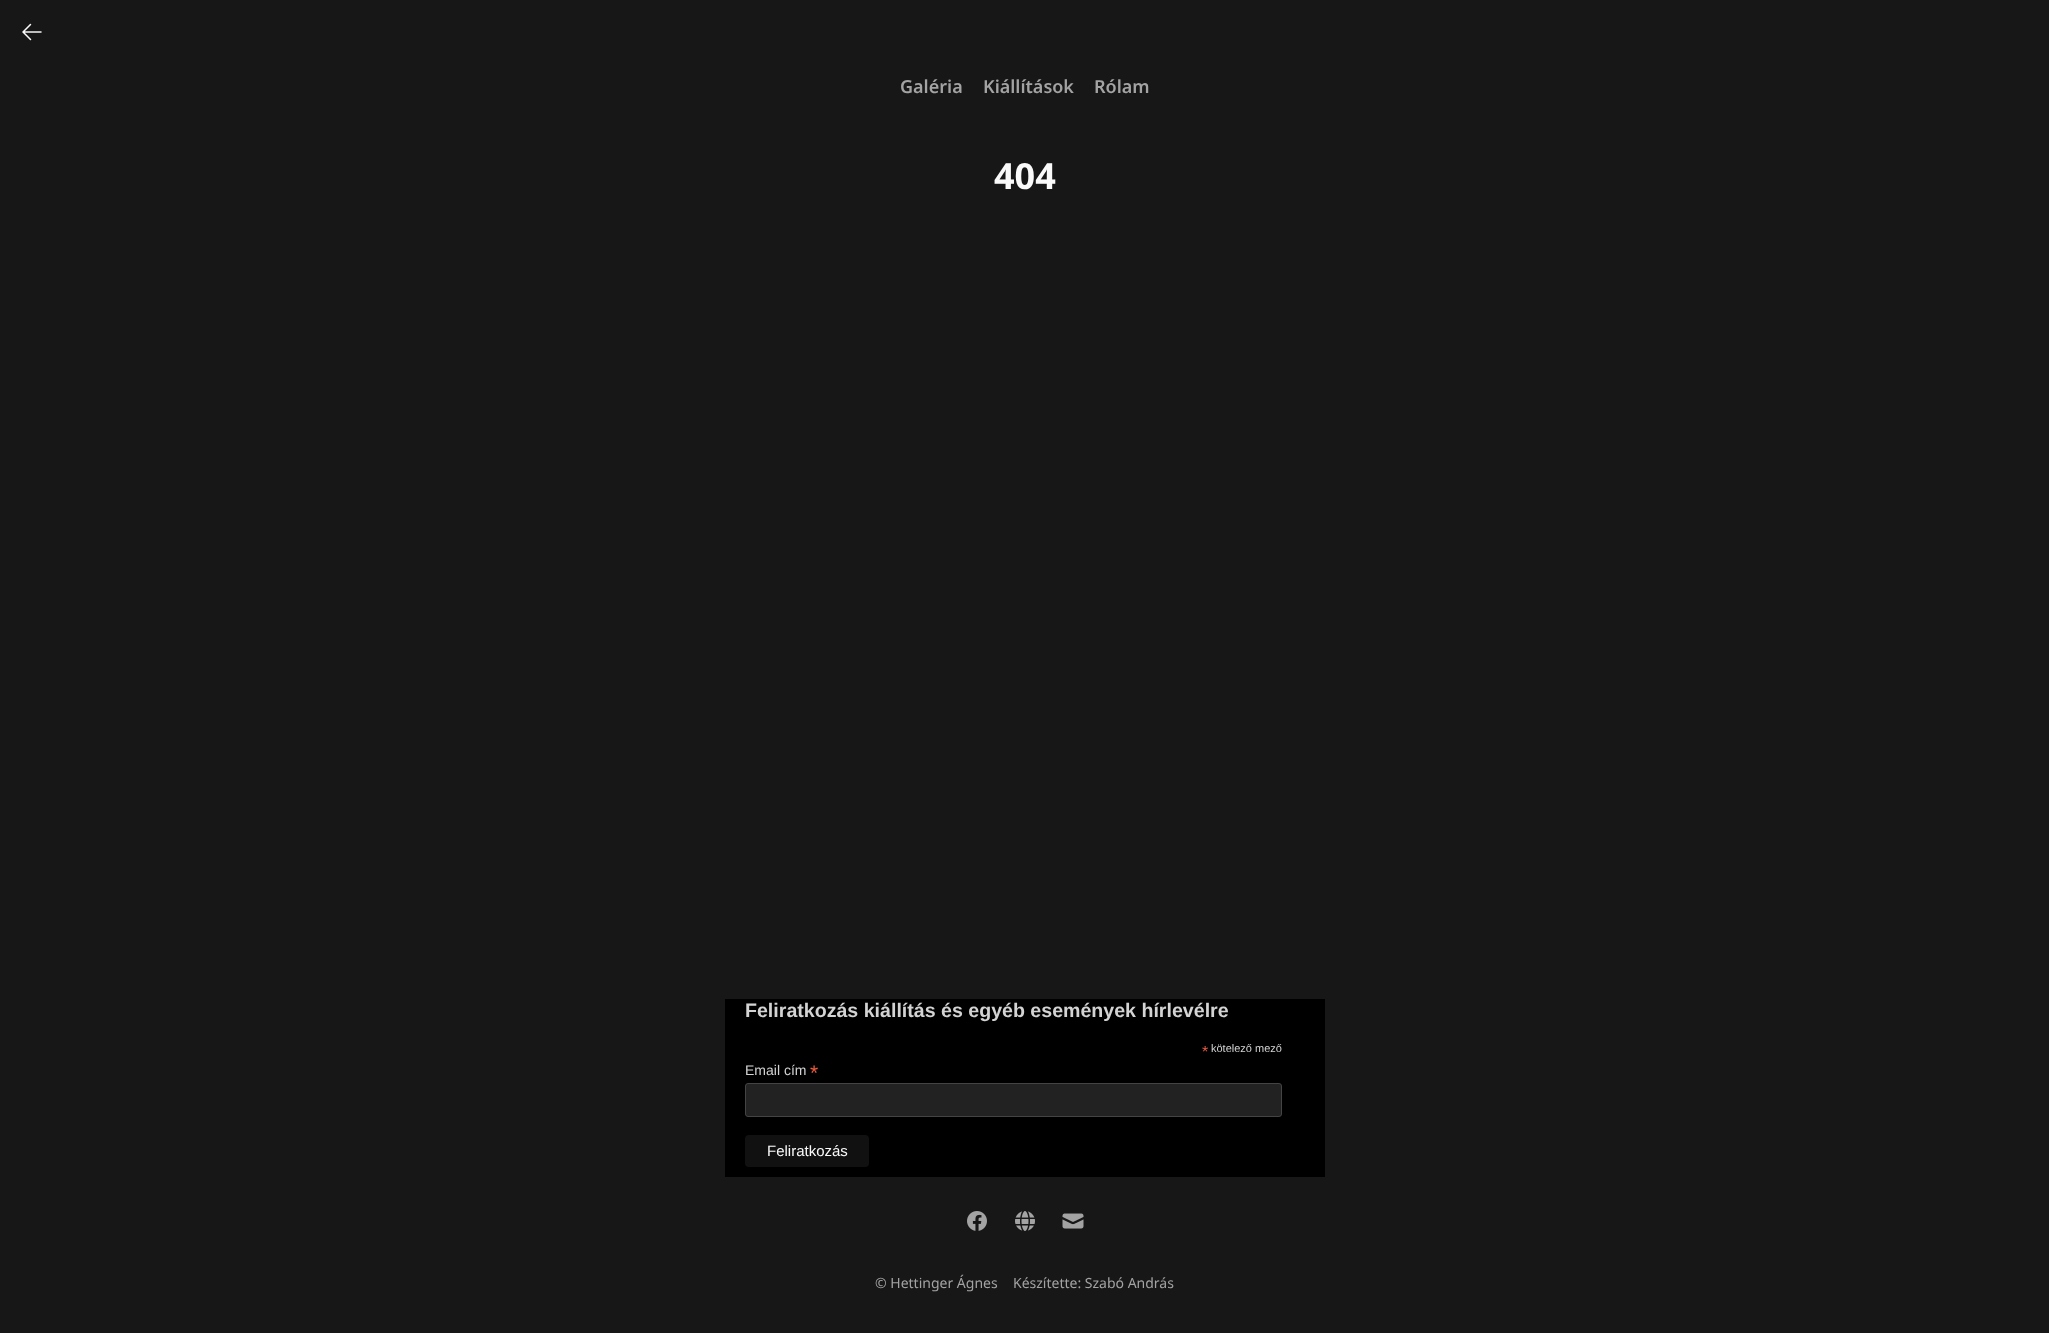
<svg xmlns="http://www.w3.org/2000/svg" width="2049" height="1333">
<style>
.a{font:600 18px Noto Sans;fill:#a3a3a3}
.b{font:bold 36px Noto Sans;fill:#fafafa}
.c{font:bold 19.6px Liberation Sans;fill:#d3d3d3}
.d{font:16px Liberation Sans;fill:#e85c41}
.e{font:11px Liberation Sans;fill:#d3d3d3}
.f{font:14px Liberation Sans;fill:#d3d3d3}
.g{font:21px Liberation Sans;fill:#e85c41}
.h{font:15px Liberation Sans;fill:#fafafa}
.i{font:14px Noto Sans;fill:#a3a3a3}
</style>
<rect width="100%" height="100%" fill="#171717"/>
<image href="1.png" x="22" y="23" width="20" height="18"/>
<path fill="#000" d="M725 999h600v178H725z"/>
<rect fill="#222" stroke="#444" x="745.5" y="1083.5" width="536" height="33" rx="2.5"/>
<rect fill="#111" x="745" y="1135" width="124" height="32" rx="4"/>
<image href="2.png" x="967" y="1211" width="20" height="20"/>
<image href="3.png" x="1015" y="1211" width="20" height="20"/>
<image href="4.png" x="1062" y="1213" width="22" height="16"/>
<text class="a" x="900" y="93">Galéria</text>
<text class="a" x="983" y="93">Kiállítások</text>
<text class="a" x="1094" y="93">Rólam</text>
<text class="b" x="994" y="189">404</text>
<text class="c" x="745" y="1017">Feliratkozás kiállítás és egyéb események hírlevélre</text>
<text class="d" x="1202" y="1057">*</text>
<text class="e" x="1211" y="1052">kötelező mező</text>
<text class="f" x="745" y="1075">Email cím</text>
<text class="g" x="810" y="1080">*</text>
<text class="h" x="767" y="1156">Feliratkozás</text>
<text class="i" x="875" y="1288">© Hettinger Ágnes</text>
<text class="i" x="1013" y="1288">Készítette: Szabó András</text>
</svg>
